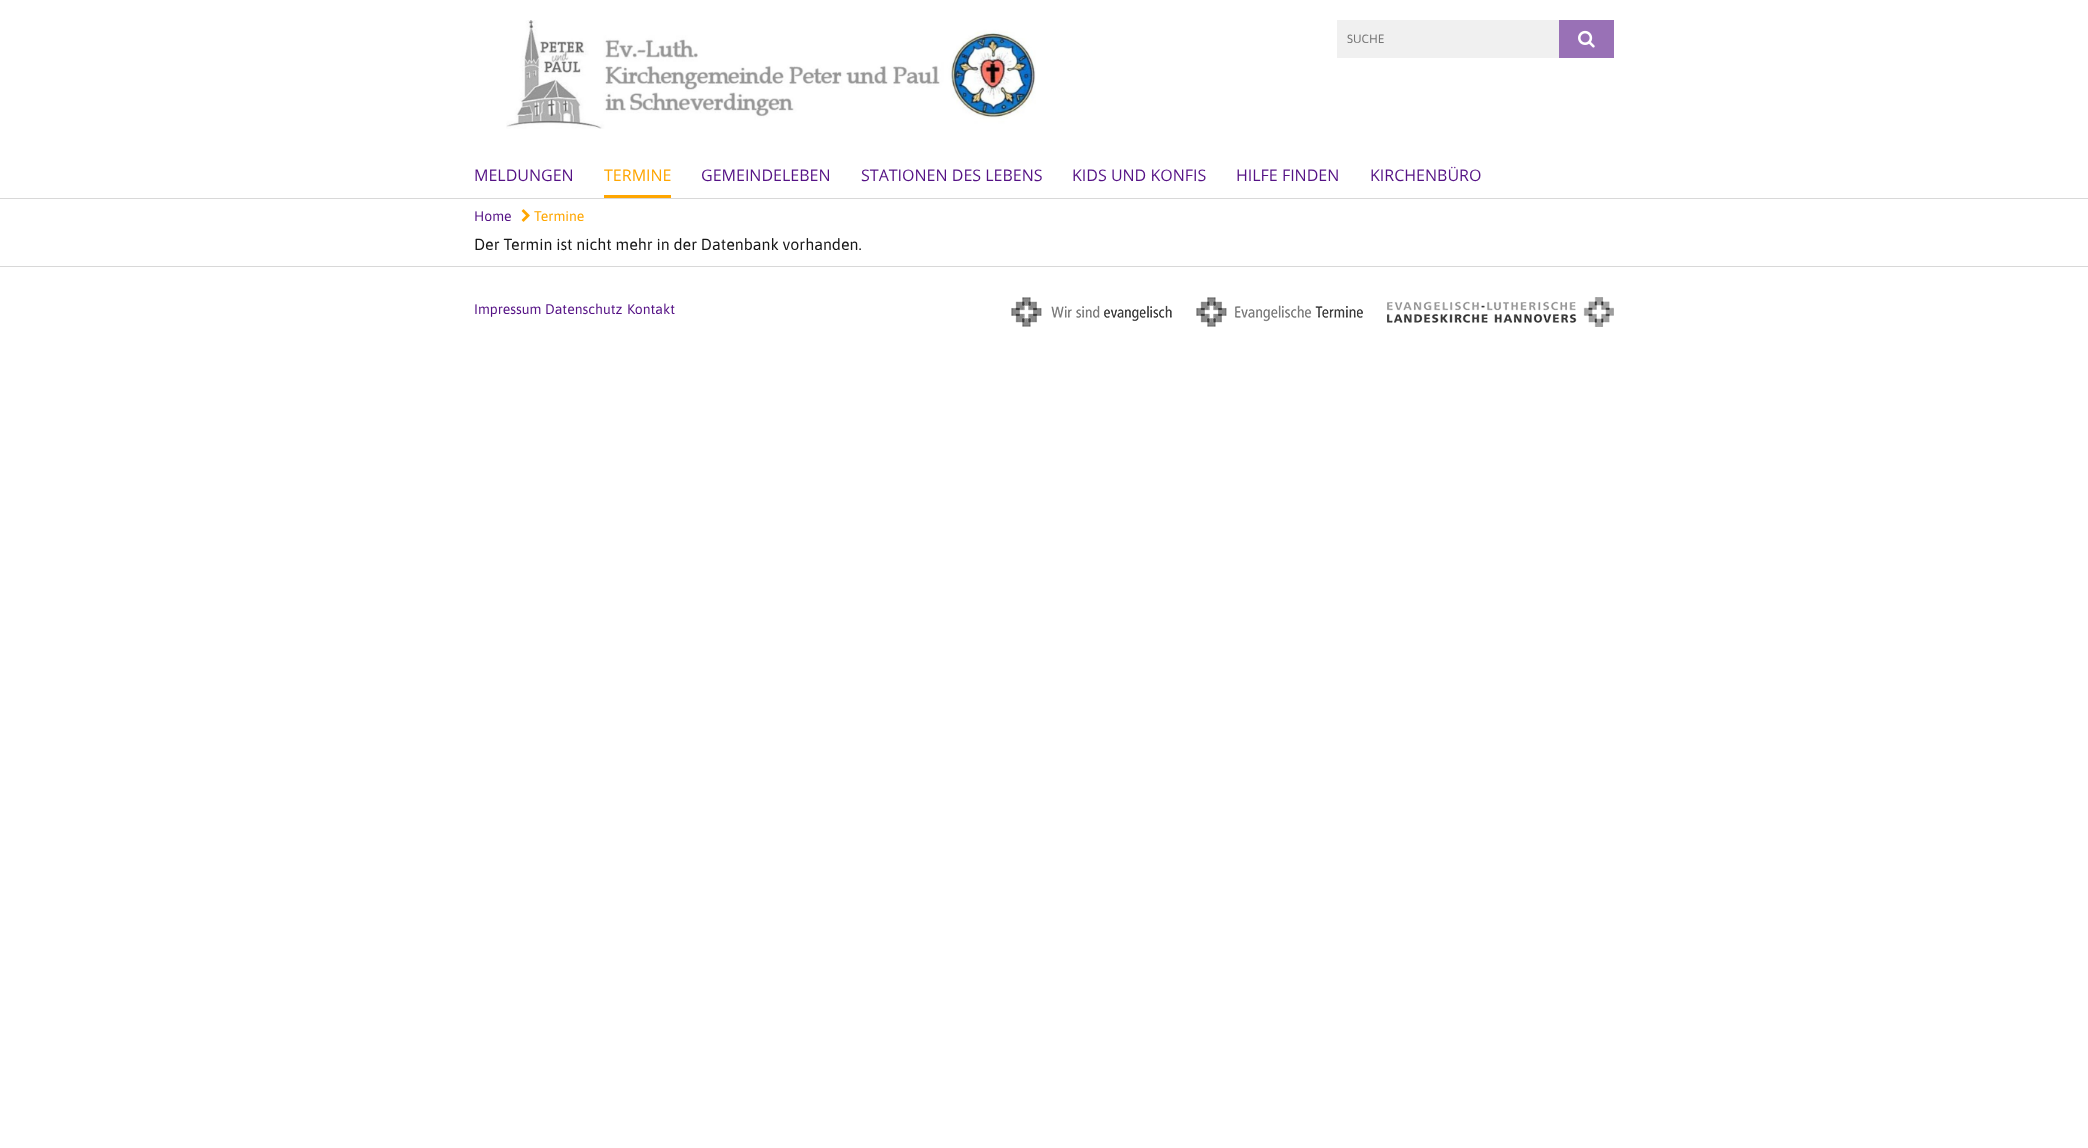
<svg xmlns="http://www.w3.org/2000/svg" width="2088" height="1148">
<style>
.a{font:12px Asap;fill:#757575}
.b{font:16px Open Sans;fill:#551285}
.c{font:16px Open Sans;fill:#ffa600}
.d{font:14px Asap;fill:#551285}
.e{font:14px Asap;fill:#ffa600}
.f{font:16px Asap;fill:#171717}
</style>
<rect width="100%" height="100%" fill="#fff"/>
<path fill="#d8d8d8" d="M0 198h2088v1H0z"/>
<image href="1.png" x="506" y="20" width="530" height="109"/>
<path fill="#f0f0f0" d="M1337 20h222v38H1337z"/>
<path fill="#9971b6" d="M1559 20h55v38H1559z"/>
<image href="2.png" x="1578" y="30" width="17" height="18"/>
<path fill="#ffa600" d="M604 195h67v3H604z"/>
<image href="3.png" x="521" y="209" width="9" height="13"/>
<path fill="#d8d8d8" d="M0 266h2088v1H0z"/>
<image href="4.png" x="1011" y="297" width="161" height="30"/>
<image href="5.png" x="1196" y="297" width="167" height="30"/>
<image href="6.png" x="1387" y="297" width="227" height="30"/>
<text class="a" x="1347" y="43">SUCHE</text>
<text class="b" x="474" y="181">MELDUNGEN</text>
<text class="c" x="604" y="181">TERMINE</text>
<text class="b" x="701" y="181">GEMEINDELEBEN</text>
<text class="b" x="861" y="181">STATIONEN DES LEBENS</text>
<text class="b" x="1072" y="181">KIDS UND KONFIS</text>
<text class="b" x="1236" y="181">HILFE FINDEN</text>
<text class="b" x="1370" y="181">KIRCHENBÜRO</text>
<text class="d" x="474" y="221">Home</text>
<text class="e" x="534" y="221">Termine</text>
<text class="f" x="474" y="250">Der Termin ist nicht mehr in der Datenbank vorhanden.</text>
<text class="d" x="474" y="314">Impressum</text>
<text class="d" x="545" y="314">Datenschutz</text>
<text class="d" x="627" y="314">Kontakt</text>
</svg>
